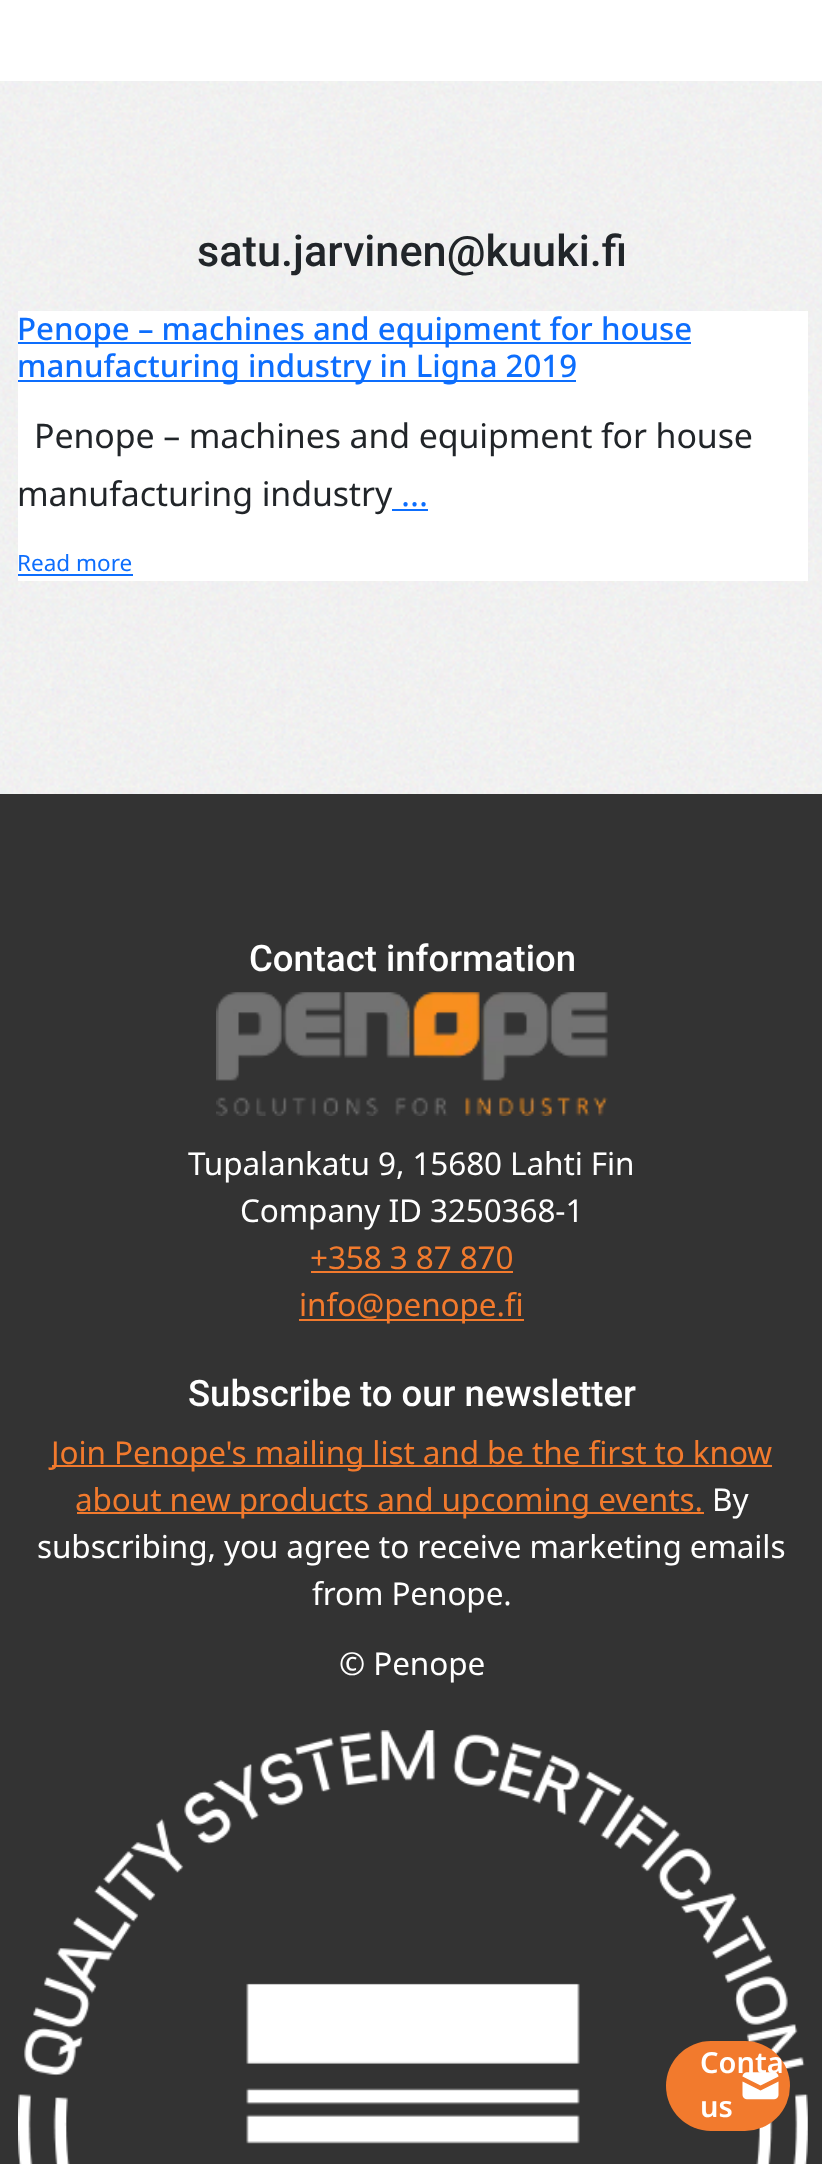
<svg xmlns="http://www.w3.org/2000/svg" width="822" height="2164">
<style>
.a{font:500 43.25px Roboto;fill:#212529}
.b{font:500 31.2px Noto Sans;fill:#0d6efd}
.c{font:33.9px Noto Sans;letter-spacing:-0.1px;fill:#212529}
.d{font:33.9px Noto Sans;letter-spacing:-0.1px;fill:#0d6efd}
.e{font:22.5px Noto Sans;fill:#0d6efd}
.f{font:500 36.5px Roboto;fill:#fff}
.g{font:31.5px Noto Sans;letter-spacing:-0.1px;fill:#fff}
.h{font:31.5px Noto Sans;letter-spacing:-0.1px;fill:#f27a2d}
.i{font:600 29px Noto Sans;fill:#fff}
</style>
<defs>
<clipPath id="clip1"><rect x="666" y="2041" width="124" height="90" rx="45"/></clipPath>
</defs>
<rect width="100%" height="100%" fill="#fff"/>
<image href="1.png" x="0" y="81" width="822" height="713"/>
<path fill="#fff" d="M18 311h790v270H18z"/>
<path fill="#0d6efd" d="M18 342h673v2H18z"/>
<path fill="#0d6efd" d="M18 380h558v2H18z"/>
<path fill="#0d6efd" d="M18 574h115v2H18z"/>
<path fill="#333" d="M0 794h822v1370H0z"/>
<image href="2.png" x="216" y="992" width="392" height="124"/>
<path fill="#f27a2d" d="M311 1271h202v2H311z"/>
<path fill="#f27a2d" d="M299 1319h225v2H299z"/>
<path fill="#f27a2d" d="M52 1465h720v2H52z"/>
<path fill="#f27a2d" d="M77 1512h627v2H77z"/>
<image href="3.png" x="18" y="1730" width="790" height="434"/>
<rect fill="#f27a2d" x="666" y="2041" width="124" height="90" rx="45"/>
<image href="4.png" x="742" y="2072" width="37" height="28"/>
<text class="a" x="197" y="266">satu.jarvinen@kuuki.fi</text>
<text class="b" x="17" y="340">Penope – machines and equipment for house</text>
<text class="b" x="17" y="377">manufacturing industry in Ligna 2019</text>
<text class="c" x="34" y="448">Penope – machines and equipment for house</text>
<text class="c" x="17" y="506">manufacturing industry</text>
<text class="d" x="401" y="506">...</text>
<path fill="#0d6efd" d="M392 509h36v2H392z"/>
<text class="e" x="17" y="571">Read more</text>
<text class="f" x="249" y="971">Contact information</text>
<text class="g" x="188" y="1175">Tupalankatu 9, 15680 Lahti Fin</text>
<text class="g" x="240" y="1222">Company ID 3250368-1</text>
<text class="h" x="310" y="1269">+358 3 87 870</text>
<text class="h" x="299" y="1316">info@penope.fi</text>
<text class="f" x="188" y="1406">Subscribe to our newsletter</text>
<text class="h" x="51" y="1464">Join Penope's mailing list and be the first to know</text>
<text class="h" x="75" y="1511">about new products and upcoming events.</text>
<text class="g" x="712" y="1511">By</text>
<text class="g" x="37" y="1558">subscribing, you agree to receive marketing emails</text>
<text class="g" x="312" y="1605">from Penope.</text>
<text class="g" x="339" y="1675">© Penope</text>
<g clip-path="url(#clip1)">
<text class="i" x="700" y="2073">Conta</text>
</g>
<text class="i" x="700" y="2117">us</text>
</svg>
